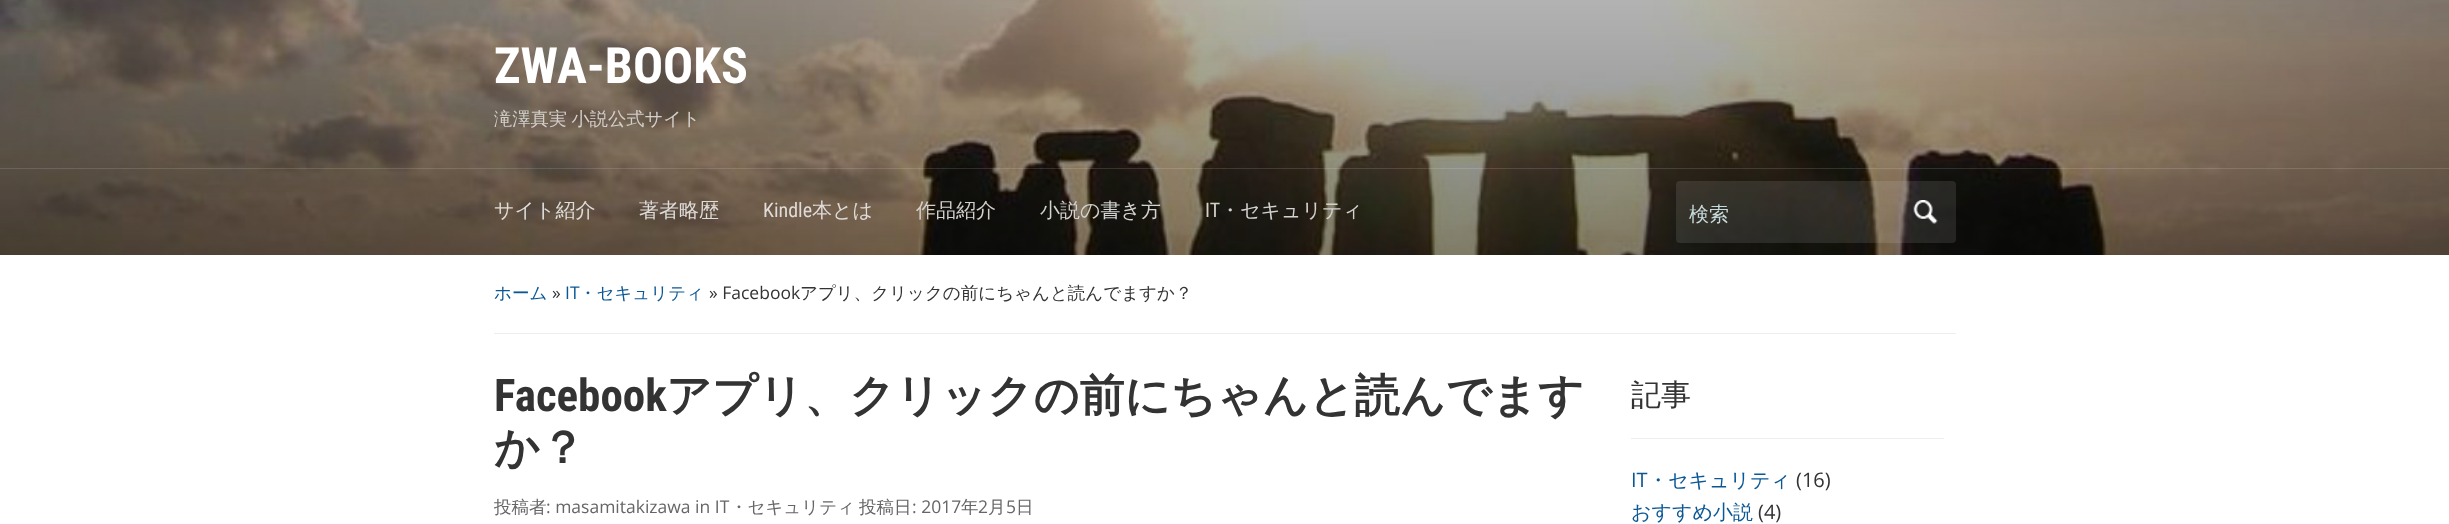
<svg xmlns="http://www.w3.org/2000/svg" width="2449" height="524">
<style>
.a{font:bold 50px Roboto Condensed;fill:#fff}
.b{font:500 18.25px WenQuanYi Zen Hei;fill:#d3cfcb}
.c{font:500 20px WenQuanYi Zen Hei;fill:#dfdcd9}
.d{font:20px Roboto Condensed;fill:#dfdcd9}
.e{font:500 20px WenQuanYi Zen Hei;fill:#d3cfcb}
.f{font:500 20px WenQuanYi Zen Hei;fill:#d3d2d1}
.g{font:20px Roboto Condensed;fill:#d3cfcb}
.h{font:500 20px WenQuanYi Zen Hei;fill:#c6d9db}
.i{font:500 17.5px WenQuanYi Zen Hei;fill:#0a5794}
.j{font:17.5px Open Sans;fill:#333}
.k{font:17.5px Open Sans;fill:#0a5794}
.l{font:500 17.5px WenQuanYi Zen Hei;fill:#333}
.m{font:bold 45px Roboto Condensed;fill:#333}
.n{font:bold 45px WenQuanYi Zen Hei;fill:#333}
.o{font:500 17.5px WenQuanYi Zen Hei;fill:#666}
.p{font:17.5px Open Sans;fill:#666}
.q{font:500 30px WenQuanYi Zen Hei;fill:#333}
.r{font:20px Open Sans;fill:#0a5794}
.s{font:500 20px WenQuanYi Zen Hei;fill:#0a5794}
.t{font:20px Open Sans;fill:#333}
</style>
<rect width="100%" height="100%" fill="#fff"/>
<image href="1.png" x="0" y="0" width="2449" height="255"/>
<path fill="#ffffff21" d="M0 168h2449v1H0z"/>
<rect fill="#ffffff1a" x="1676" y="181" width="280" height="62" rx="4"/>
<image href="2.png" x="1913" y="200" width="25" height="24"/>
<path fill="#eee" d="M494 333h1462v1H494z"/>
<path fill="#eee" d="M1631 438h313v1H1631z"/>
<text class="a" x="494" y="83">ZWA-BOOKS</text>
<text class="b" x="494" y="125" word-spacing="-1">滝澤真実 小説公式サイト</text>
<text class="c" x="494" y="217">サイト紹介</text>
<text class="c" x="639" y="217">著者略歴</text>
<text class="d" x="763" y="217">Kindle</text>
<text class="c" x="812" y="217">本とは</text>
<text class="e" x="916" y="217">作品紹介</text>
<text class="f" x="1040" y="217">小説の書き方</text>
<text class="g" x="1205" y="217">IT</text>
<text class="f" x="1220" y="217">・セキュリティ</text>
<text class="h" x="1689" y="221">検索</text>
<text class="i" x="494" y="299">ホーム</text>
<text class="j" x="552" y="299">»</text>
<text class="k" x="565" y="299">IT</text>
<text class="i" x="579" y="299">・セキュリティ</text>
<text class="j" x="709" y="299">» Facebook</text>
<text class="l" x="800" y="299">アプリ、クリックの前にちゃんと読んでますか？</text>
<text class="m" x="494" y="411">Facebook</text>
<text class="n" x="666" y="411">アプリ、クリックの前にちゃんと読んでます</text>
<text class="n" x="494" y="463">か？</text>
<text class="o" x="494" y="513">投稿者</text>
<text class="p" x="546" y="513">: masamitakizawa in IT</text>
<text class="o" x="730" y="513">・セキュリティ</text>
<text class="o" x="859" y="513">投稿日</text>
<text class="p" x="912" y="513">: 2017</text>
<text class="o" x="961" y="513">年</text>
<text class="p" x="978" y="513">2</text>
<text class="o" x="988" y="513">月</text>
<text class="p" x="1006" y="513">5</text>
<text class="o" x="1016" y="513">日</text>
<text class="q" x="1631" y="405">記事</text>
<text class="r" x="1631" y="487">IT</text>
<text class="s" x="1648" y="487">・セキュリティ</text>
<text class="t" x="1796" y="487">(16)</text>
<text class="s" x="1631" y="519">おすすめ小説</text>
<text class="t" x="1758" y="519">(4)</text>
</svg>
